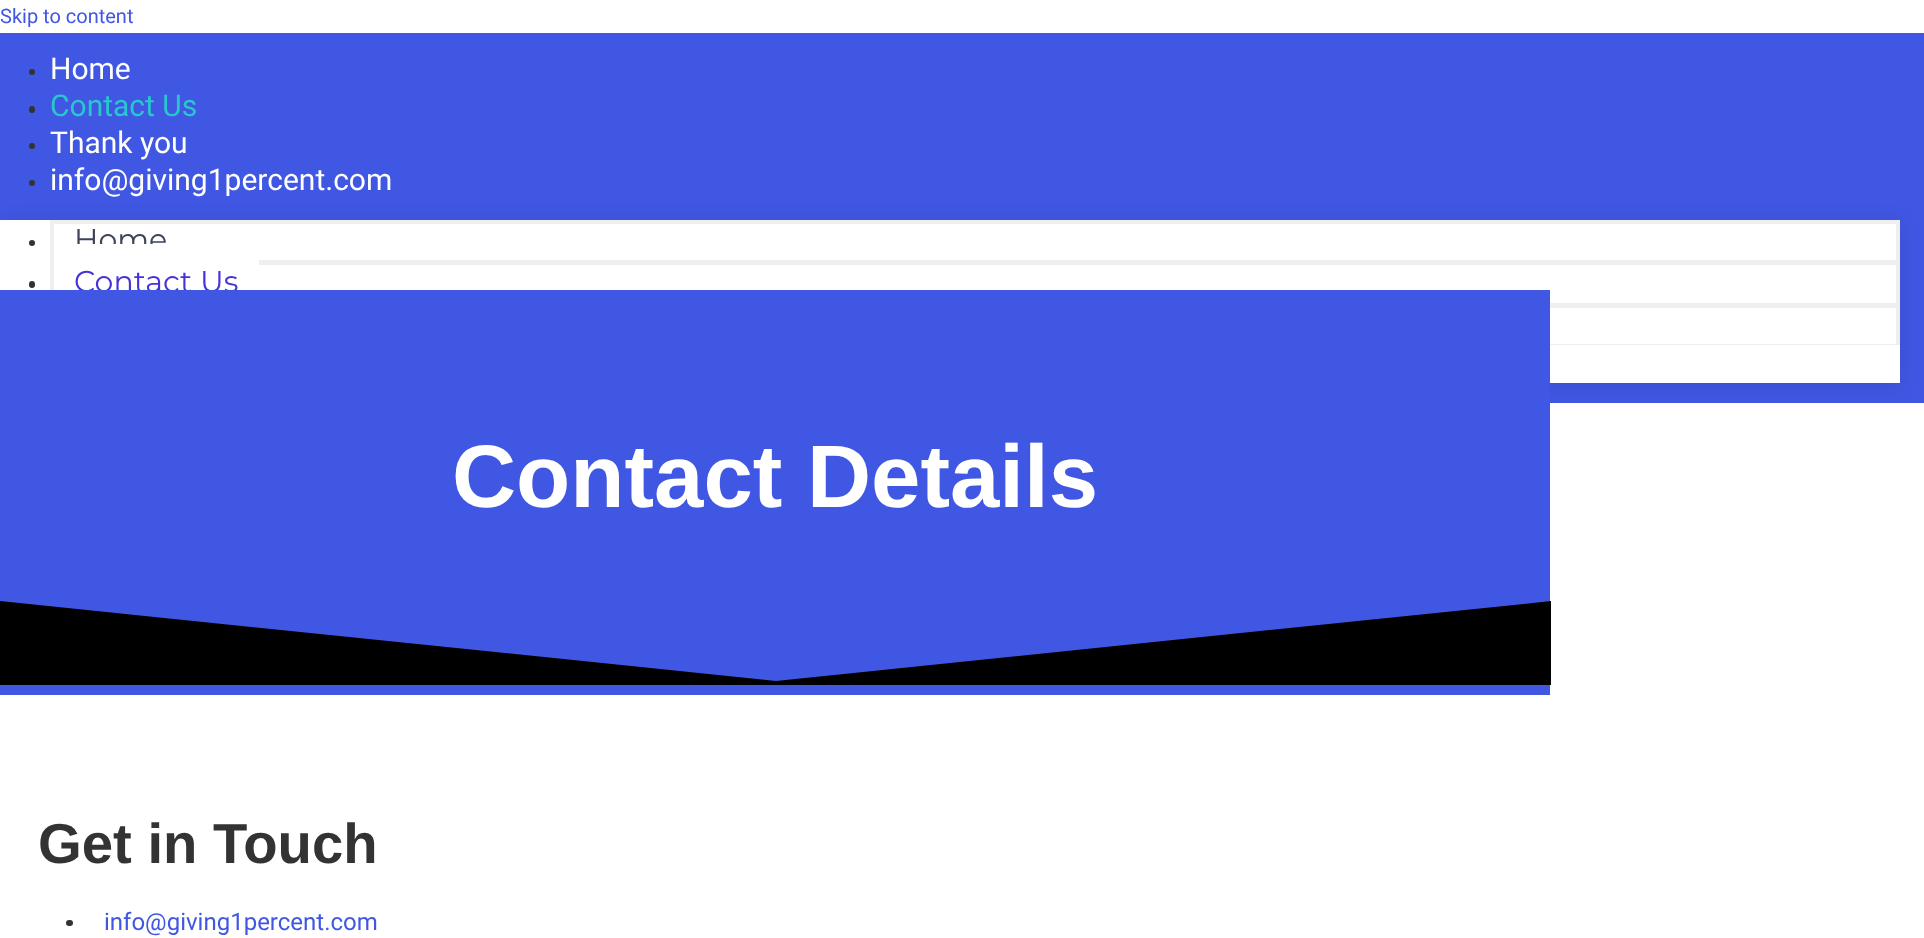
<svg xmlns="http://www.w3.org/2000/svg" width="1924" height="938">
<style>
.a{font:20px Roboto;fill:#4057e3}
.b{font:30px Roboto;fill:#fff}
.c{font:30px Roboto;fill:#27c8cc}
.d{font:30px Montserrat;fill:#3d4459}
.e{font:30px Montserrat;fill:#4632da}
.f{font:bold 88.75px Liberation Sans;fill:#fff}
.g{font:bold 56.25px Liberation Sans;fill:#333}
.h{font:24px Roboto;fill:#4057e3}
</style>
<defs>
<clipPath id="clip1"><path d="M0 601h1551v84H0z"/></clipPath>
</defs>
<rect width="100%" height="100%" fill="#fff"/>
<path fill="#4057e3" d="M0 33h1924v370H0z"/>
<circle fill="#333" cx="32" cy="72" r="3"/>
<rect fill="#333" x="29" y="106" width="6" height="7" rx="3"/>
<circle fill="#333" cx="32" cy="146" r="3"/>
<circle fill="#333" cx="32" cy="183" r="3"/>
<path fill="#0000001a" filter="blur(9.5px)" d="M0 223h1900v162H0z"/>
<path fill="#fff" d="M0 220h1900v163H0z"/>
<path fill="#efefef" d="M50 220h1850v4H50z"/>
<path fill="#efefef" d="M1896 220h4v41H1896z"/>
<path fill="#efefef" d="M259 260h1641v5H259z"/>
<path fill="#efefef" d="M50 220h4v70H50z"/>
<circle fill="#333" cx="32" cy="243" r="3"/>
<path fill="#efefef" d="M1896 261h4v43H1896z"/>
<path fill="#efefef" d="M1550 303h350v5H1550z"/>
<rect fill="#333" x="29" y="281" width="6" height="7" rx="3"/>
<path fill="#efefef" d="M1896 304h4v41H1896z"/>
<path fill="#efefef" d="M1550 344h350v1H1550z"/>
<rect fill="#333" x="66" y="920" width="7" height="6" rx="3"/>
<text class="a" x="0" y="23">Skip to content</text>
<text class="b" x="50" y="79">Home</text>
<text class="c" x="50" y="116">Contact Us</text>
<text class="b" x="50" y="153">Thank you</text>
<text class="b" x="50" y="190">info@giving1percent.com</text>
<text class="d" x="74" y="250">Home</text>
<text class="e" x="74" y="292">Contact Us</text>
<path fill="#fff" d="M77 244h88v7H77z"/>
<path fill="#4057e3" d="M0 290h1550v405H0z"/>
<text class="f" x="452" y="507">Contact Details</text>
<g clip-path="url(#clip1)">
<path fill="#000" d="M776 681l-776-80v84h1552v-84z"/>
</g>
<text class="g" x="38" y="863">Get in Touch</text>
<text class="h" x="104" y="930">info@giving1percent.com</text>
</svg>
